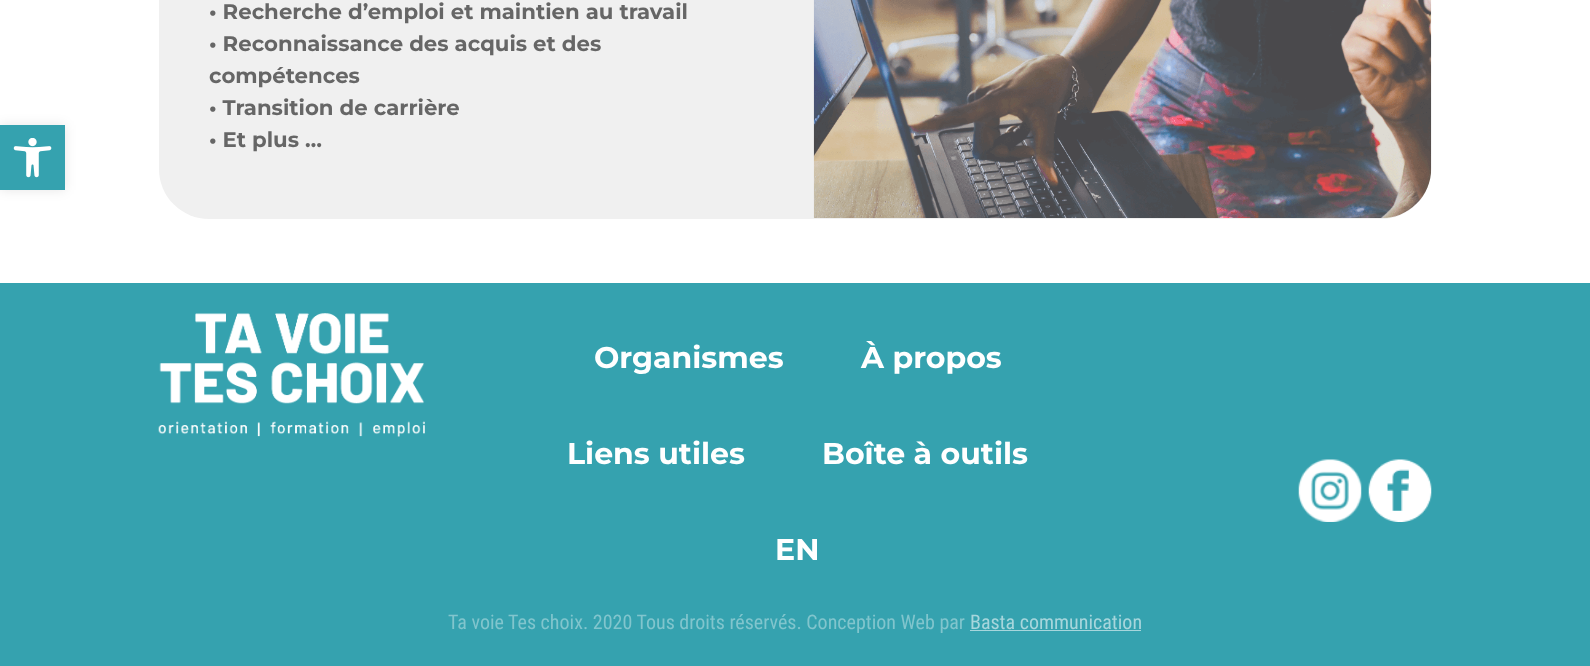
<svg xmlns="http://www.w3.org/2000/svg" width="1590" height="666">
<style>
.a{font:bold 21.25px Montserrat;fill:#666}
.b{font:bold 30px Montserrat;fill:#fff}
.c{font:20px Roboto Condensed;fill:#81c5cd}
.d{font:20px Roboto Condensed;fill:#a7d6dc}
</style>
<rect width="100%" height="100%" fill="#fff"/>
<path fill="#0000001a" filter="blur(6px)" d="M0 125h65v65H0z"/>
<path fill="#35a2af" d="M0 125h65v65H0z"/>
<image href="1.png" x="13" y="138" width="39" height="40"/>
<rect fill="#f0f0f0" x="159" y="-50" width="1272" height="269" rx="50"/>
<image href="2.png" x="813" y="0" width="619" height="218"/>
<path fill="#35a2af" d="M0 283h1590v383H0z"/>
<image href="3.png" x="158" y="313" width="267" height="124"/>
<image href="4.png" x="1298" y="459" width="64" height="63"/>
<image href="5.png" x="1368" y="459" width="64" height="63"/>
<path fill="#a7d6dc" d="M970 630h171v1H970z"/>
<text class="a" x="209" y="19">• Recherche d’emploi et maintien au travail</text>
<text class="a" x="209" y="51">• Reconnaissance des acquis et des</text>
<text class="a" x="209" y="83">compétences</text>
<text class="a" x="209" y="115">• Transition de carrière</text>
<text class="a" x="209" y="147">• Et plus …</text>
<text class="b" x="594" y="368">Organismes</text>
<text class="b" x="861" y="368">À propos</text>
<text class="b" x="567" y="464">Liens utiles</text>
<text class="b" x="822" y="464">Boîte à outils</text>
<text class="b" x="775" y="560">EN</text>
<text class="c" x="448" y="629">Ta voie Tes choix. 2020 Tous droits réservés. Conception Web par</text>
<text class="d" x="970" y="629">Basta communication</text>
</svg>
